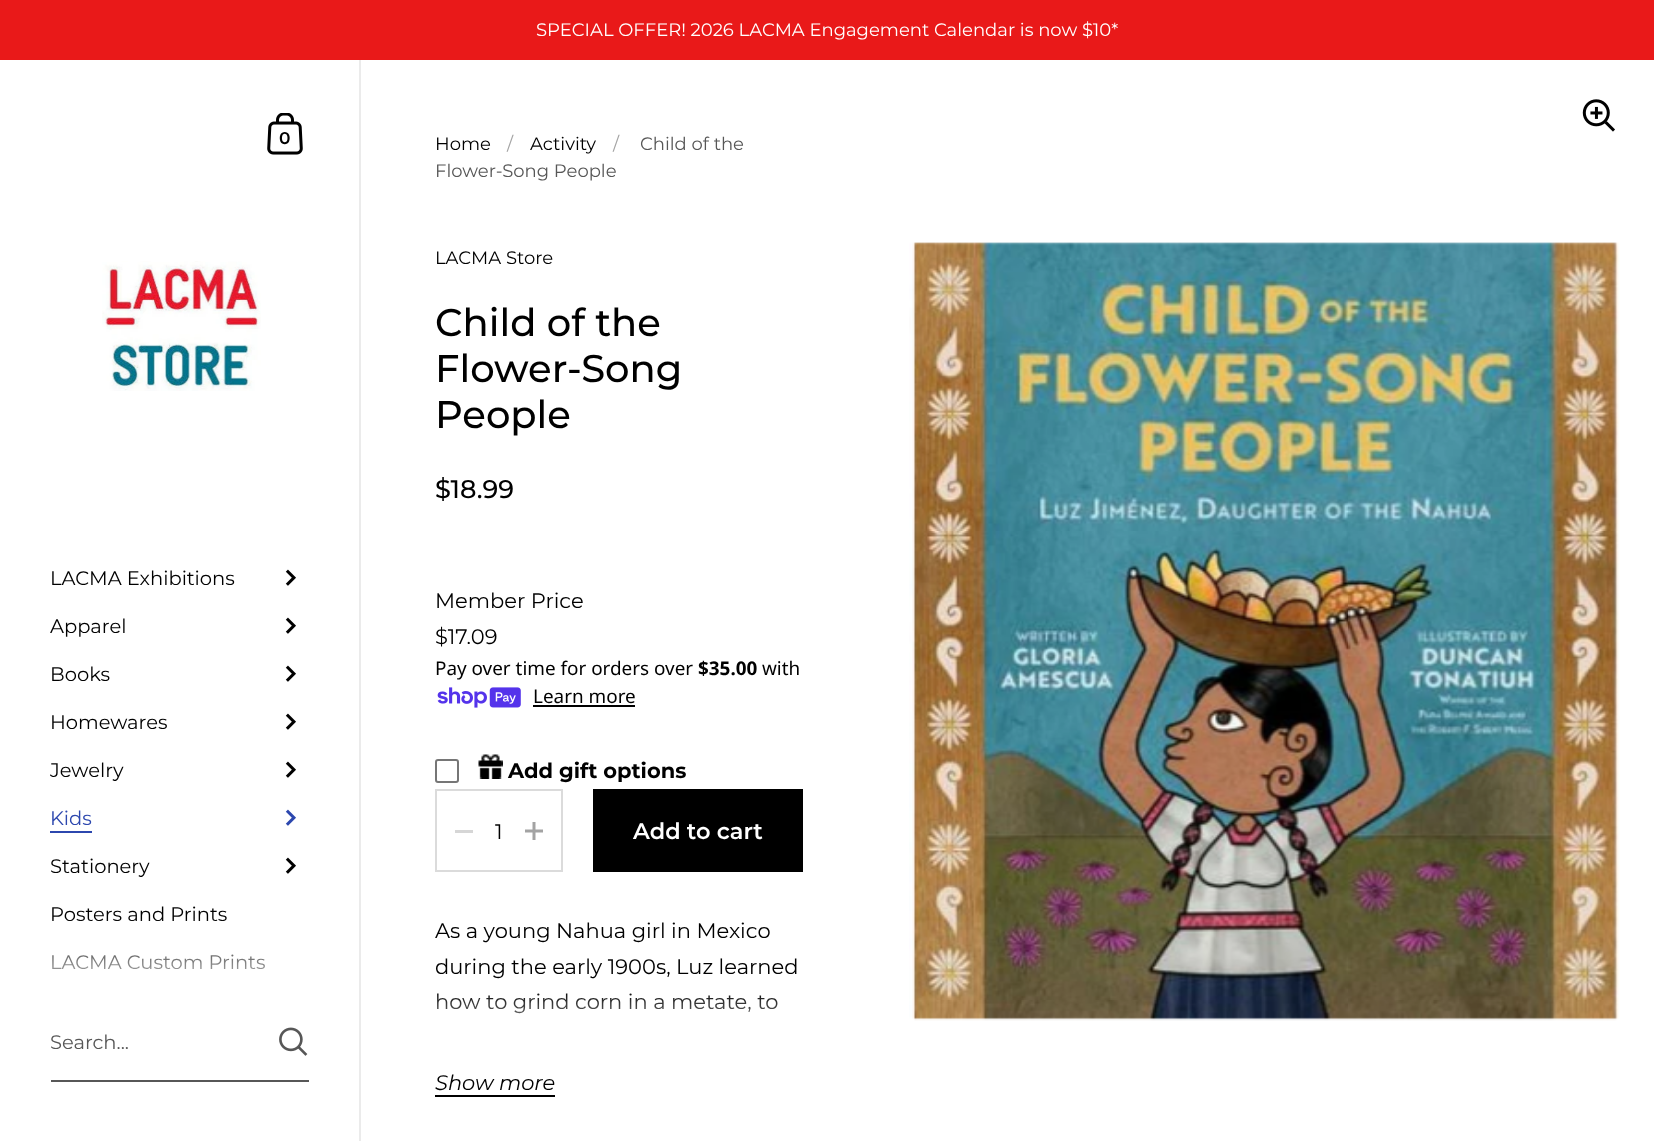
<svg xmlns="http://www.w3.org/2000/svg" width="1654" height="1141">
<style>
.a{font:18px Montserrat;fill:#fff}
.b{font:600 17px Montserrat;fill:#000}
.c{font:19.5px Montserrat;fill:#000}
.d{font:19.5px Montserrat;fill:#2c47ae}
.e{font:19.5px Montserrat;fill:#575757}
.f{font:18px Montserrat;fill:#000}
.g{font:18px Montserrat;fill:#a3a3a3}
.h{font:18px Montserrat;fill:#575757}
.i{font:500 38.5px Montserrat;fill:#000}
.j{font:500 25.5px Montserrat;fill:#000}
.k{font:21px Montserrat;fill:#000}
.l{font:18.9px Noto Sans;fill:#000}
.m{font:bold 18.9px Noto Sans;fill:#000}
.n{font:bold 21px Montserrat;fill:#000}
.o{font:600 22.5px Montserrat;fill:#fff}
.p{font:italic 21px Montserrat;fill:#000}
</style>
<defs>
<linearGradient id="g1" gradientUnits="userSpaceOnUse" x1="180" y1="1007" x2="180" y2="917"><stop offset="0" stop-color="#fff"/><stop offset="1" stop-color="#fff" stop-opacity="0"/></linearGradient>
<linearGradient id="g2" gradientUnits="userSpaceOnUse" x1="619" y1="1064" x2="619" y2="989"><stop offset="0" stop-color="#fff"/><stop offset="0.1" stop-color="#fff"/><stop offset="1" stop-color="#fff" stop-opacity="0"/></linearGradient>
</defs>
<rect width="100%" height="100%" fill="#fff"/>
<path fill="#e91919" d="M0 0h1654v60H0z"/>
<path fill="#ebebeb" d="M359 60h2v1081H359z"/>
<image href="1.png" x="267" y="113" width="36" height="42"/>
<image href="2.png" x="102" y="261" width="159" height="130"/>
<image href="3.png" x="285" y="569" width="11" height="17"/>
<image href="3.png" x="285" y="617" width="11" height="17"/>
<image href="3.png" x="285" y="665" width="11" height="17"/>
<image href="3.png" x="285" y="713" width="11" height="17"/>
<image href="3.png" x="285" y="761" width="11" height="17"/>
<path fill="#2c47ae" d="M50 831h42v2H50z"/>
<image href="4.png" x="285" y="809" width="11" height="17"/>
<image href="3.png" x="285" y="857" width="11" height="17"/>
<path fill="#575757" d="M51 1080h258v2H51z"/>
<image href="5.png" x="279" y="1027" width="29" height="29"/>
<image href="6.png" x="437" y="687" width="84" height="21"/>
<path fill="#000" d="M533 705h102v2H533z"/>
<rect fill="none" stroke="#767676" stroke-width="2" x="436" y="760" width="22" height="22" rx="2"/>
<image href="7.png" x="478" y="754" width="25" height="25"/>
<path fill="none" stroke="#dbdbdb" stroke-width="2" d="M436 790h126v81H436z"/>
<path fill="#d6d6d6" d="M455 830h18v3H455z"/>
<image href="8.png" x="525" y="822" width="18" height="18"/>
<path fill="#000" d="M593 789h210v83H593z"/>
<path fill="#000" d="M435 1095h120v2H435z"/>
<image href="9.png" x="1582" y="99" width="33" height="33"/>
<image href="10.png" x="909" y="242" width="711" height="779"/>
<text class="a" x="536" y="36">SPECIAL OFFER! 2026 LACMA Engagement Calendar is now $10*</text>
<text class="b" x="279" y="144">0</text>
<text class="c" x="50" y="585">LACMA Exhibitions</text>
<text class="c" x="50" y="633">Apparel</text>
<text class="c" x="50" y="681">Books</text>
<text class="c" x="50" y="729">Homewares</text>
<text class="c" x="50" y="777">Jewelry</text>
<text class="d" x="50" y="825">Kids</text>
<text class="c" x="50" y="873">Stationery</text>
<text class="c" x="50" y="921">Posters and Prints</text>
<text class="c" x="50" y="969">LACMA Custom Prints</text>
<path fill="url(#g1)" d="M52 919h214v51H52z"/>
<text class="e" x="50" y="1049">Search...</text>
<text class="f" x="435" y="150">Home</text>
<text class="g" x="507" y="150">/</text>
<text class="f" x="530" y="150">Activity</text>
<text class="g" x="613" y="150">/</text>
<text class="h" x="640" y="150">Child of the</text>
<text class="h" x="435" y="177">Flower-Song People</text>
<text class="f" x="435" y="264">LACMA Store</text>
<text class="i" x="435" y="336">Child of the</text>
<text class="i" x="435" y="382">Flower-Song</text>
<text class="i" x="435" y="428">People</text>
<text class="j" x="435" y="498">$18.99</text>
<text class="k" x="435" y="608">Member Price</text>
<text class="k" x="435" y="644">$17.09</text>
<text class="l" x="435" y="675">Pay over time for orders over</text>
<text class="m" x="698" y="675">$35.00</text>
<text class="l" x="762" y="675">with</text>
<text class="l" x="533" y="703">Learn more</text>
<text class="n" x="508" y="778">Add gift options</text>
<text class="k" x="495" y="839">1</text>
<text class="o" x="633" y="839">Add to cart</text>
<text class="k" x="435" y="938">As a young Nahua girl in Mexico</text>
<text class="k" x="435" y="974">during the early 1900s, Luz learned</text>
<text class="k" x="435" y="1009">how to grind corn in a metate, to</text>
<path fill="url(#g2)" d="M437 993h341v21H437z"/>
<text class="p" x="435" y="1090">Show more</text>
</svg>
